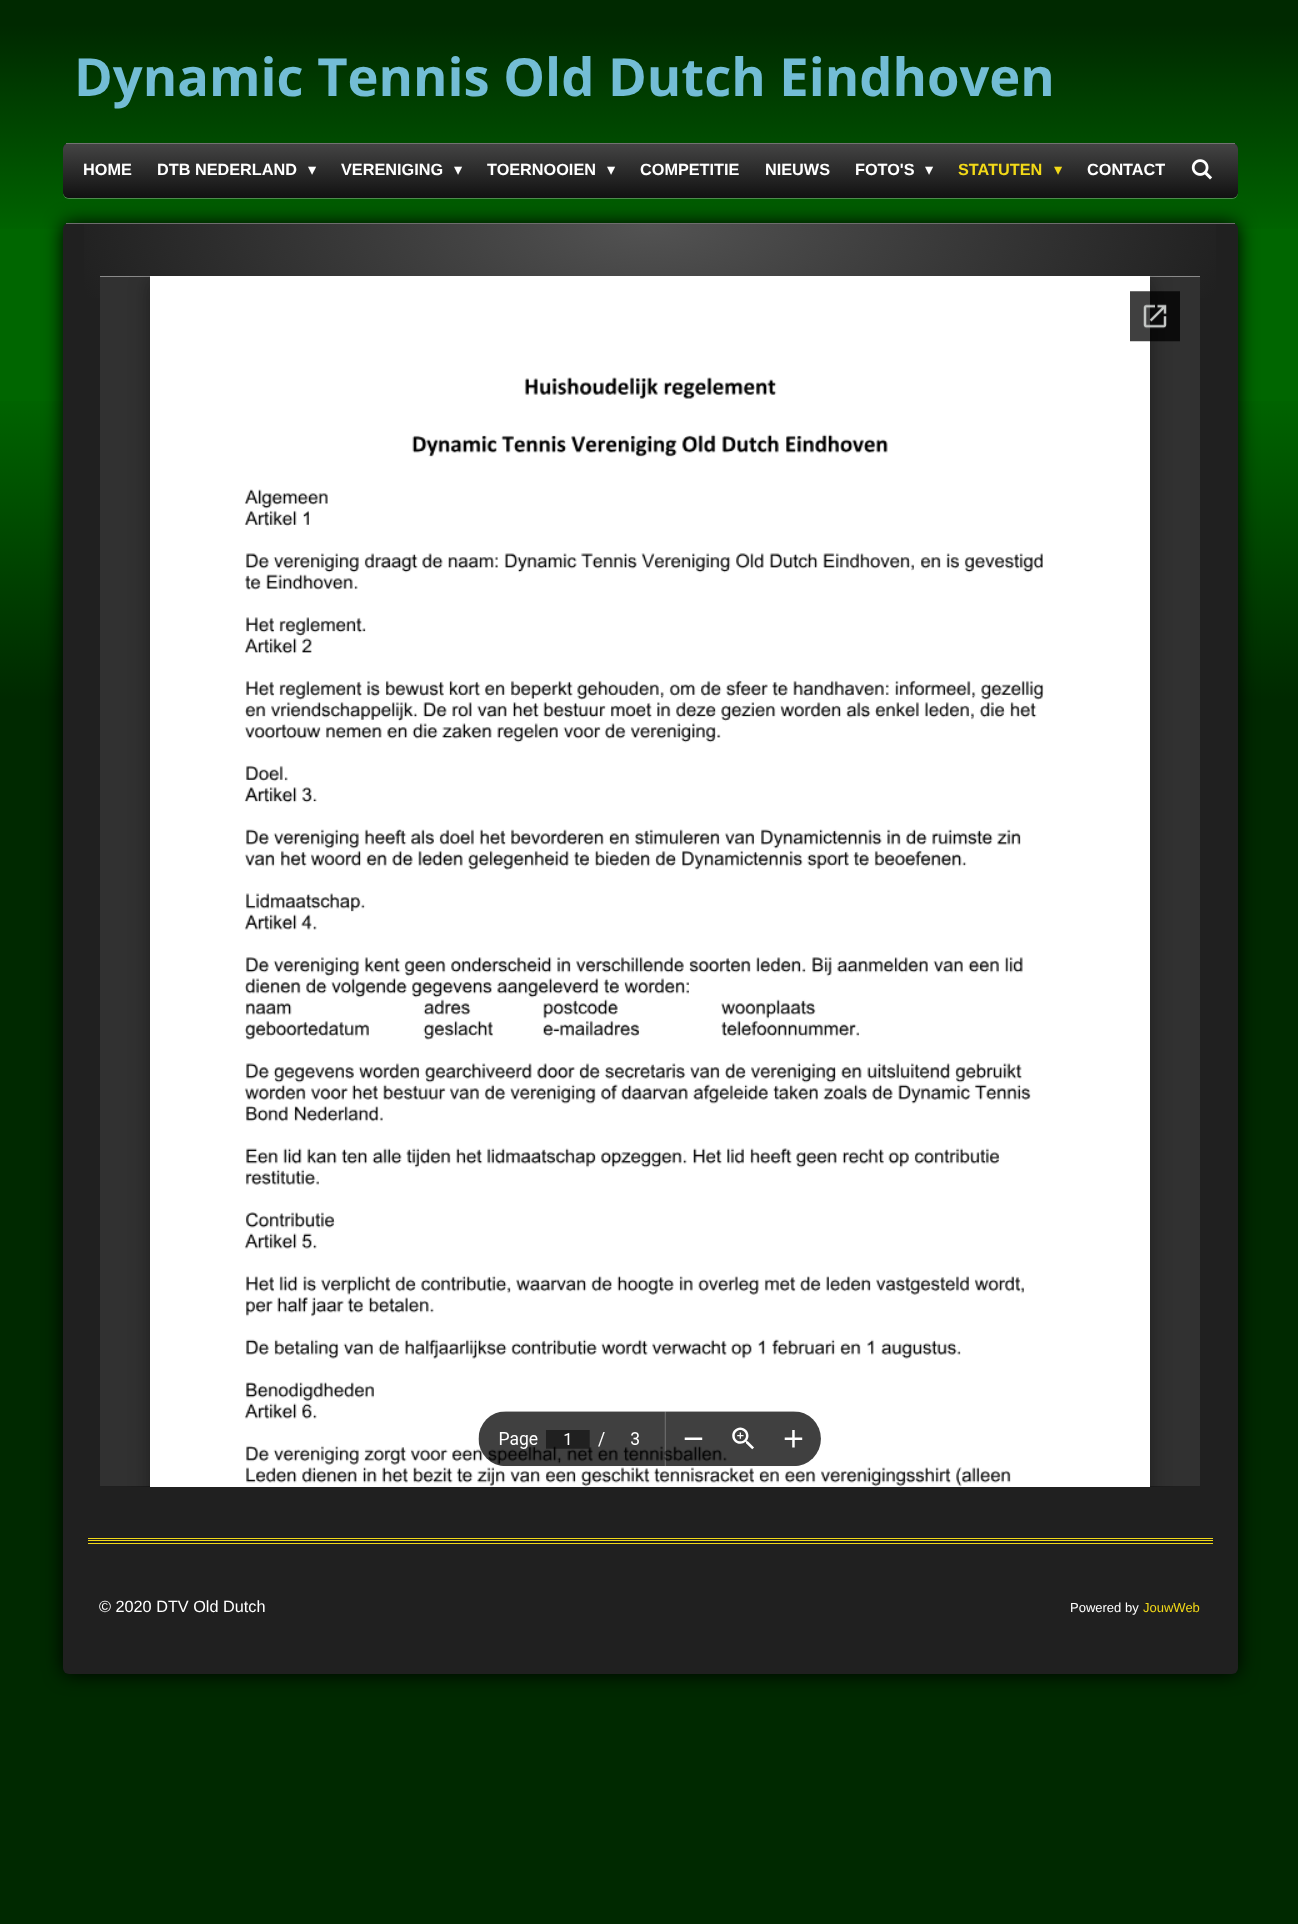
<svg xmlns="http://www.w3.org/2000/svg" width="1298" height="1924">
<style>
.a{font:bold 52.5px Open Sans;fill:#73bdd5}
.b{font:bold 16.25px Liberation Sans;fill:#fff}
.c{font:16.25px DejaVu Sans;fill:#fff}
.d{font:bold 16.25px Liberation Sans;fill:#f2d918}
.e{font:16.25px DejaVu Sans;fill:#f2d918}
.f{font:16.25px Liberation Sans;fill:#fff}
.g{font:13px Liberation Sans;fill:#fff}
.h{font:13px Liberation Sans;fill:#f2d918}
</style>
<defs>
<linearGradient id="g1" gradientUnits="userSpaceOnUse" x1="649" y1="238" x2="649" y2="25"><stop offset="0" stop-color="#060"/><stop offset="1" stop-color="#002900"/></linearGradient>
<clipPath id="clip1"><rect x="63" y="143" width="1175" height="55" rx="6"/></clipPath>
<linearGradient id="g2" gradientUnits="userSpaceOnUse" x1="650" y1="198" x2="650" y2="144"><stop offset="0" stop-color="#111"/><stop offset="1" stop-color="#444"/></linearGradient>
<linearGradient id="g3" gradientUnits="userSpaceOnUse" x1="649" y1="700" x2="649" y2="388"><stop offset="0" stop-color="#002900"/><stop offset="1" stop-color="#060"/></linearGradient>
<radialGradient id="g4" gradientUnits="userSpaceOnUse" cx="0" cy="0" r="1" gradientTransform="matrix(588 0 0 250 650 224)"><stop offset="0" stop-color="#535353"/><stop offset="1" stop-color="#535353" stop-opacity="0"/></radialGradient>
</defs>
<rect width="100%" height="100%" fill="#060"/>
<path fill="#002900" d="M0 0h1298v25H0z"/>
<path fill="url(#g1)" d="M0 25h1298v204H0z"/>
<rect fill="#ffffff4d" filter="blur(0.5px)" x="63" y="144" width="1175" height="55" rx="6"/>
<rect fill="#111" x="63" y="143" width="1175" height="55" rx="6"/>
<g clip-path="url(#clip1)">
<path fill="url(#g2)" d="M63 144h1175v48c0 3.5-2.5 6-6 6h-1163c-3.5 0-6-2.5-6-6z"/>
</g>
<path fill="#727272" d="M66 143h1169v1H66z"/>
<image href="1.png" x="1191" y="159" width="22" height="21"/>
<path fill="url(#g3)" d="M0 401h1298v299H0z"/>
<path fill="#002900" d="M0 700h1298v1224H0z"/>
<rect fill="#000" filter="blur(9.5px)" x="63" y="223" width="1175" height="1451" rx="6"/>
<rect fill="#202020" x="63" y="223" width="1175" height="1451" rx="6"/>
<path fill="#6d6d6d" d="M66 223h1169v1H66z"/>
<path fill="url(#g4)" d="M84 224h1132v74H84z"/>
<path fill="#fff" d="M100 276h1100v1210H100z"/>
<image href="2.png" x="100" y="276" width="1100" height="1211"/>
<path fill="#f2d918" d="M88 1538h1125v1H88z"/>
<path fill="#f2d918" d="M88 1540h1125v1H88z"/>
<path fill="#f2d918" d="M88 1543h1125v1H88z"/>
<text class="a" x="74" y="96">Dynamic Tennis Old Dutch Eindhoven</text>
<text class="b" x="83" y="175">HOME</text>
<text class="b" x="157" y="175">DTB NEDERLAND</text>
<text class="c" x="308" y="175">▾</text>
<text class="b" x="341" y="175">VERENIGING</text>
<text class="c" x="454" y="175">▾</text>
<text class="b" x="487" y="175">TOERNOOIEN</text>
<text class="c" x="607" y="175">▾</text>
<text class="b" x="640" y="175">COMPETITIE</text>
<text class="b" x="765" y="175">NIEUWS</text>
<text class="b" x="855" y="175">FOTO'S</text>
<text class="c" x="925" y="175">▾</text>
<text class="d" x="958" y="175">STATUTEN</text>
<text class="e" x="1054" y="175">▾</text>
<text class="b" x="1087" y="175">CONTACT</text>
<text class="f" x="99" y="1612">© 2020 DTV Old Dutch</text>
<text class="g" x="1070" y="1612">Powered by</text>
<text class="h" x="1143" y="1612">JouwWeb</text>
</svg>
